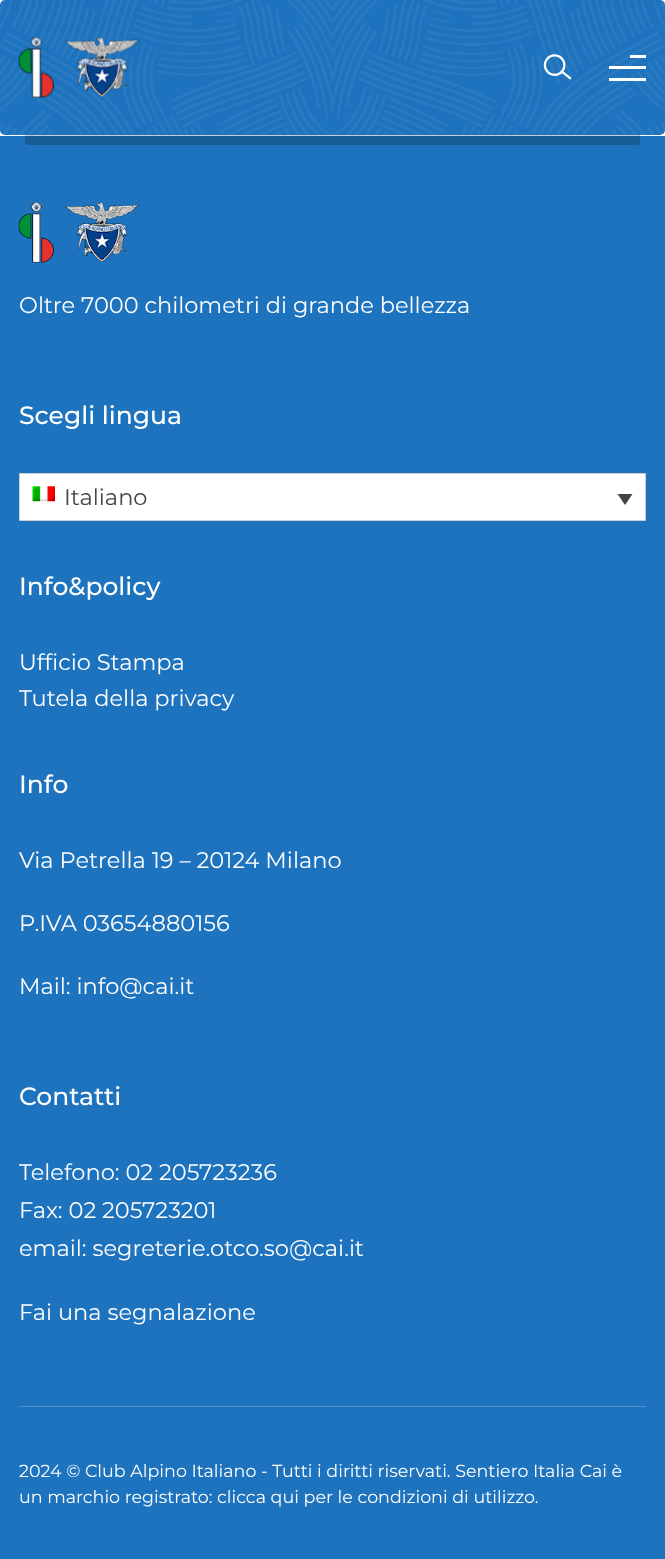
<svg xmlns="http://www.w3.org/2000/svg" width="665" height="1559">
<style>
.a{font:22.5px Montserrat;fill:#fff}
.b{font:100 25px Montserrat;fill:#fff}
.c{font:22.5px Montserrat;fill:#444}
.d{font:17.5px Montserrat;fill:#fff}
</style>
<rect width="100%" height="100%" fill="#fff"/>
<rect fill="#1e73be" width="665" height="135" rx="5"/>
<image href="1.png" x="0" y="0" width="665" height="135"/>
<image href="2.png" x="18" y="37" width="121" height="61"/>
<image href="3.png" x="543" y="54" width="29" height="26"/>
<path fill="#fff" d="M630 55h16v3H630z"/>
<path fill="#fff" d="M609 66h37v3H609z"/>
<path fill="#fff" d="M609 78h37v3H609z"/>
<path fill="#1e73be" d="M0 136h665v1423H0z"/>
<path fill="#00000033" d="M25 135h615v7.5c0 1.5-1 2.5-2.5 2.5h-610c-1.5 0-2.5-1-2.5-2.5z"/>
<image href="4.png" x="18" y="202" width="121" height="61"/>
<path fill="#fff" stroke="#cdcdcd" d="M19.5 473.5h626v47H19.5z"/>
<image href="5.png" x="32" y="486" width="23" height="16"/>
<path fill="#444" d="M617.5 494h15l-7.5 11z"/>
<path fill="#4b8fcb" d="M19 1406h627v1H19z"/>
<text class="a" x="19" y="313">Oltre 7000 chilometri di grande bellezza</text>
<text class="b" x="19" y="424">Scegli lingua</text>
<text class="c" x="64" y="505">Italiano</text>
<text class="b" x="19" y="595">Info&amp;policy</text>
<text class="a" x="19" y="670">Ufficio Stampa</text>
<text class="a" x="19" y="706">Tutela della privacy</text>
<text class="b" x="19" y="793">Info</text>
<text class="a" x="19" y="868">Via Petrella 19 – 20124 Milano</text>
<text class="a" x="19" y="931">P.IVA 03654880156</text>
<text class="a" x="19" y="994">Mail: info@cai.it</text>
<text class="b" x="19" y="1105">Contatti</text>
<text class="a" x="19" y="1180">Telefono: 02 205723236</text>
<text class="a" x="19" y="1218">Fax: 02 205723201</text>
<text class="a" x="19" y="1256">email: segreterie.otco.so@cai.it</text>
<text class="a" x="19" y="1320">Fai una segnalazione</text>
<text class="d" x="19" y="1477">2024 © Club Alpino Italiano - Tutti i diritti riservati. Sentiero Italia Cai è</text>
<text class="d" x="19" y="1503">un marchio registrato: clicca qui per le condizioni di utilizzo.</text>
</svg>
